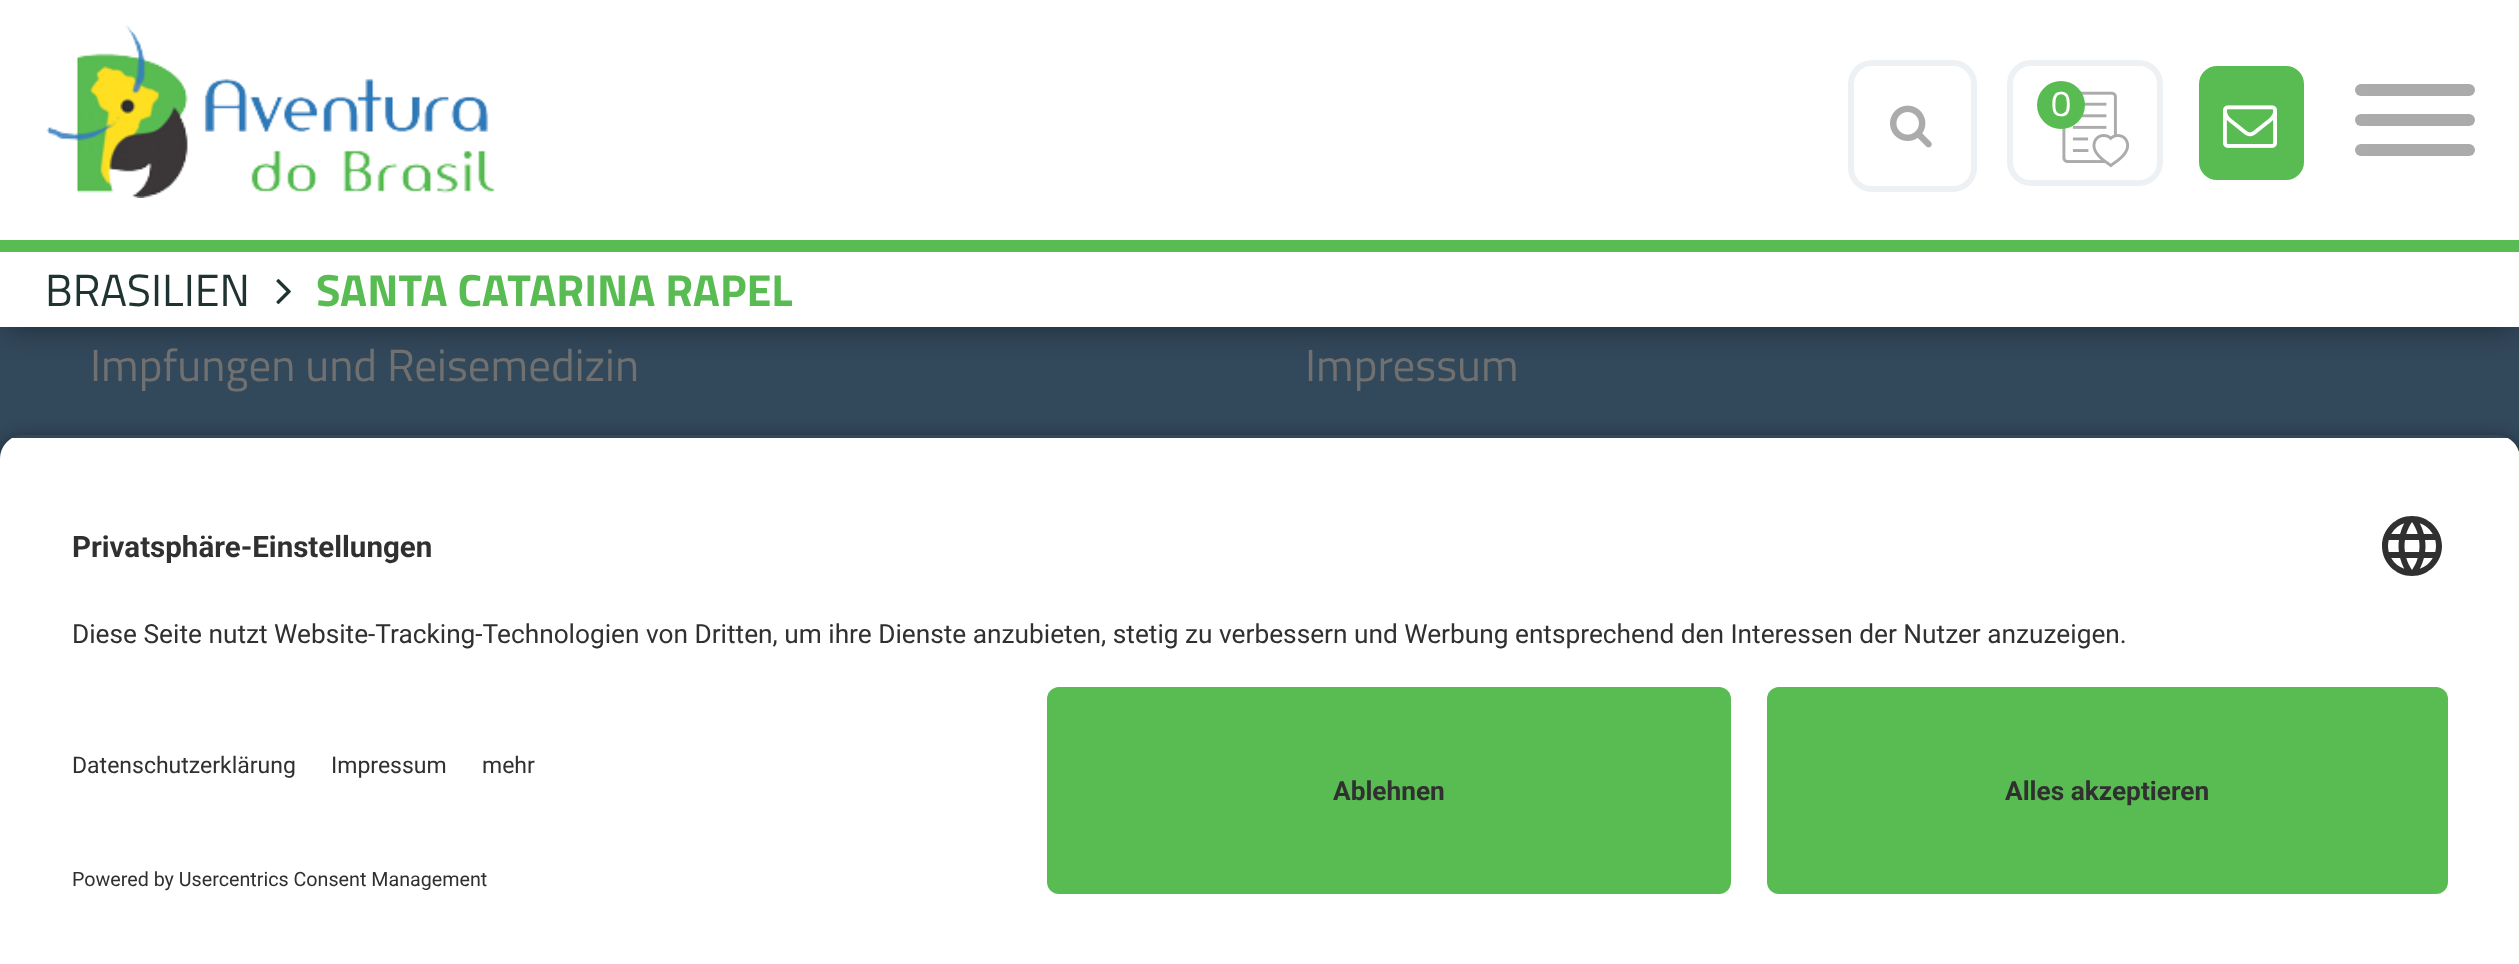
<svg xmlns="http://www.w3.org/2000/svg" width="2519" height="964">
<style>
.a{font:36px Titillium Web;fill:#fff}
.b{font:45px Titillium Web;fill:#1f3331}
.c{font:bold 45px Titillium Web;fill:#59bc52}
.d{font:45px Titillium Web;fill:#707070}
.e{font:bold 29.5px Roboto;fill:#303030}
.f{font:26.25px Roboto;fill:#303030}
.g{font:23px Roboto;fill:#303030}
.h{font:19.7px Roboto;fill:#303030}
.i{font:bold 26.25px Roboto;fill:#303030}
</style>
<defs>
<clipPath id="clip1"><path d="M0 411h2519v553h-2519zm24 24h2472c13.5 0 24 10.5 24 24v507h-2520v-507c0-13.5 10.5-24 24-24z" clip-rule="evenodd"/></clipPath>
<clipPath id="clip2"><path d="M24 435h2472c13.5 0 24 10.5 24 24v204h-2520v-204c0-13.5 10.5-24 24-24z"/></clipPath>
</defs>
<rect width="100%" height="100%" fill="#32485b"/>
<path fill="#00000069" filter="blur(15px)" d="M6 -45h2508v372H6z"/>
<path fill="#fff" d="M0 0h2519v327H0z"/>
<image href="1.png" x="46" y="25" width="449" height="173"/>
<rect fill="none" stroke="#eef1f3" stroke-width="6" x="1851" y="63" width="123" height="126" rx="21"/>
<image href="2.png" x="1890" y="105" width="42" height="43"/>
<rect fill="none" stroke="#eef1f3" stroke-width="6" x="2010" y="63" width="150" height="120" rx="21"/>
<image href="3.png" x="2062" y="91" width="68" height="77"/>
<circle fill="#59bc52" cx="2061" cy="105" r="24"/>
<rect fill="#59bc52" stroke="#fff" stroke-width="6" x="2196" y="63" width="111" height="120" rx="21"/>
<image href="4.png" x="2223" y="105" width="54" height="43"/>
<rect fill="#ababab" x="2355" y="144" width="120" height="12" rx="6"/>
<rect fill="#ababab" x="2355" y="84" width="120" height="12" rx="6"/>
<rect fill="#ababab" x="2355" y="114" width="120" height="12" rx="6"/>
<path fill="#59bc52" d="M0 240h2519v12H0z"/>
<image href="5.png" x="276" y="279" width="15" height="25"/>
<g clip-path="url(#clip1)">
<rect fill="#000000cc" filter="blur(10.5px)" y="444" width="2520" height="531" rx="24"/>
</g>
<g clip-path="url(#clip2)">
<path fill="#fff" d="M0 438h2519v225H0z"/>
</g>
<image href="6.png" x="2382" y="516" width="60" height="60"/>
<path fill="#fff" d="M0 663h2519v301H0z"/>
<rect fill="#59bc52" x="1047" y="687" width="684" height="207" rx="12"/>
<rect fill="#59bc52" x="1767" y="687" width="681" height="207" rx="12"/>
<text class="a" x="2051" y="116">0</text>
<text class="b" x="45" y="306">BRASILIEN</text>
<text class="c" x="316" y="306">SANTA CATARINA RAPEL</text>
<text class="d" x="90" y="381">Impfungen und Reisemedizin</text>
<text class="d" x="1305" y="381">Impressum</text>
<text class="e" x="72" y="557">Privatsphäre-Einstellungen</text>
<text class="f" x="72" y="643">Diese Seite nutzt Website-Tracking-Technologien von Dritten, um ihre Dienste anzubieten, stetig zu verbessern und Werbung entsprechend den Interessen der Nutzer anzuzeigen.</text>
<text class="g" x="72" y="773">Datenschutzerklärung</text>
<text class="g" x="331" y="773">Impressum</text>
<text class="g" x="482" y="773">mehr</text>
<text class="h" x="72" y="886">Powered by Usercentrics Consent Management</text>
<text class="i" x="1333" y="800">Ablehnen</text>
<text class="i" x="2005" y="800">Alles akzeptieren</text>
</svg>
